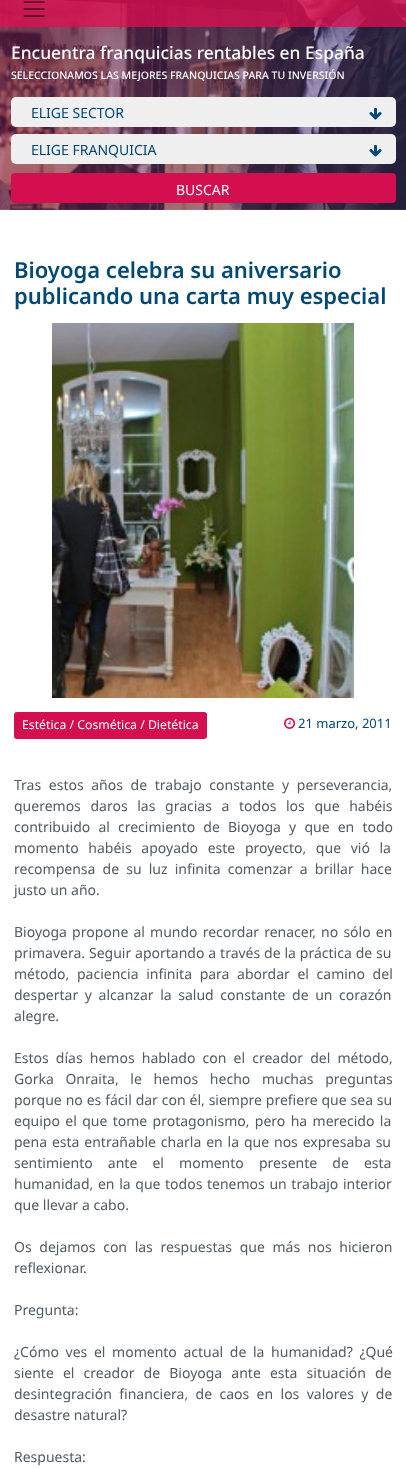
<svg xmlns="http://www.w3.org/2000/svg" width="406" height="1469">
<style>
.a{font:500 17.4px Noto Sans;fill:#fff}
.b{font:500 10.5px Noto Sans;fill:#fff}
.c{font:14px Noto Sans;fill:#004875}
.d{font:14px Noto Sans;fill:#fff}
.e{font:600 22px Noto Sans;fill:#004875}
.f{font:12.25px Noto Sans;fill:#fff}
.g{font:13px Noto Sans;fill:#004875}
.h{font:14px Noto Sans;fill:#505b63}
</style>
<rect width="100%" height="100%" fill="#fff"/>
<image href="1.png" x="0" y="0" width="406" height="210"/>
<path fill="#e30d52bf" d="M0 0h406v27H0z"/>
<image href="2.png" x="23" y="1" width="22" height="16"/>
<rect fill="#efefef" x="11" y="97" width="385" height="30" rx="5"/>
<image href="3.png" x="369" y="108" width="13" height="12"/>
<rect fill="#efefef" x="11" y="134" width="385" height="30" rx="5"/>
<image href="3.png" x="369" y="145" width="13" height="12"/>
<rect fill="#d40f4f" x="11" y="173" width="385" height="30" rx="4"/>
<image href="4.png" x="52" y="323" width="302" height="375"/>
<rect fill="#d40f4f" x="14" y="712" width="193" height="27" rx="3"/>
<image href="5.png" x="284" y="717" width="12" height="12"/>
<text class="a" x="11" y="59">Encuentra franquicias rentables en España</text>
<text class="b" x="11" y="79">SELECCIONAMOS LAS MEJORES FRANQUICIAS PARA TU INVERSIÓN</text>
<text class="c" x="31" y="118">ELIGE SECTOR</text>
<text class="c" x="31" y="155">ELIGE FRANQUICIA</text>
<text class="d" x="176" y="195">BUSCAR</text>
<text class="e" x="14" y="278">Bioyoga celebra su aniversario</text>
<text class="e" x="14" y="304">publicando una carta muy especial</text>
<text class="f" x="22" y="729">Estética / Cosmética / Dietética</text>
<text class="g" x="298" y="728">21 marzo, 2011</text>
<text class="h" x="14" y="790" word-spacing="4">Tras estos años de trabajo constante y perseverancia,</text>
<text class="h" x="14" y="811" word-spacing="6">queremos daros las gracias a todos los que habéis</text>
<text class="h" x="14" y="832" word-spacing="4.5">contribuido al crecimiento de Bioyoga y que en todo</text>
<text class="h" x="14" y="853" word-spacing="6">momento habéis apoyado este proyecto, que vió la</text>
<text class="h" x="14" y="874" word-spacing="3.5">recompensa de su luz infinita comenzar a brillar hace</text>
<text class="h" x="14" y="895">justo un año.</text>
<text class="h" x="14" y="937" word-spacing="1.5">Bioyoga propone al mundo recordar renacer, no sólo en</text>
<text class="h" x="14" y="958" word-spacing="0.25">primavera. Seguir aportando a través de la práctica de su</text>
<text class="h" x="14" y="979" word-spacing="4">método, paciencia infinita para abordar el camino del</text>
<text class="h" x="14" y="1000" word-spacing="3">despertar y alcanzar la salud constante de un corazón</text>
<text class="h" x="14" y="1021">alegre.</text>
<text class="h" x="14" y="1063" word-spacing="3.5">Estos días hemos hablado con el creador del método,</text>
<text class="h" x="14" y="1084" word-spacing="8">Gorka Onraita, le hemos hecho muchas preguntas</text>
<text class="h" x="14" y="1105" word-spacing="0.25">porque no es fácil dar con él, siempre prefiere que sea su</text>
<text class="h" x="14" y="1126" word-spacing="1.75">equipo el que tome protagonismo, pero ha merecido la</text>
<text class="h" x="14" y="1147" word-spacing="1.25">pena esta entrañable charla en la que nos expresaba su</text>
<text class="h" x="14" y="1168" word-spacing="11.5">sentimiento ante el momento presente de esta</text>
<text class="h" x="14" y="1189" word-spacing="1">humanidad, en la que todos tenemos un trabajo interior</text>
<text class="h" x="14" y="1210">que llevar a cabo.</text>
<text class="h" x="14" y="1252" word-spacing="4">Os dejamos con las respuestas que más nos hicieron</text>
<text class="h" x="14" y="1273">reflexionar.</text>
<text class="h" x="14" y="1315">Pregunta:</text>
<text class="h" x="14" y="1357" word-spacing="3">¿Cómo ves el momento actual de la humanidad? ¿Qué</text>
<text class="h" x="14" y="1378" word-spacing="5.5">siente el creador de Bioyoga ante esta situación de</text>
<text class="h" x="14" y="1399" word-spacing="3.75">desintegración financiera, de caos en los valores y de</text>
<text class="h" x="14" y="1420">desastre natural?</text>
<text class="h" x="14" y="1462">Respuesta:</text>
</svg>
